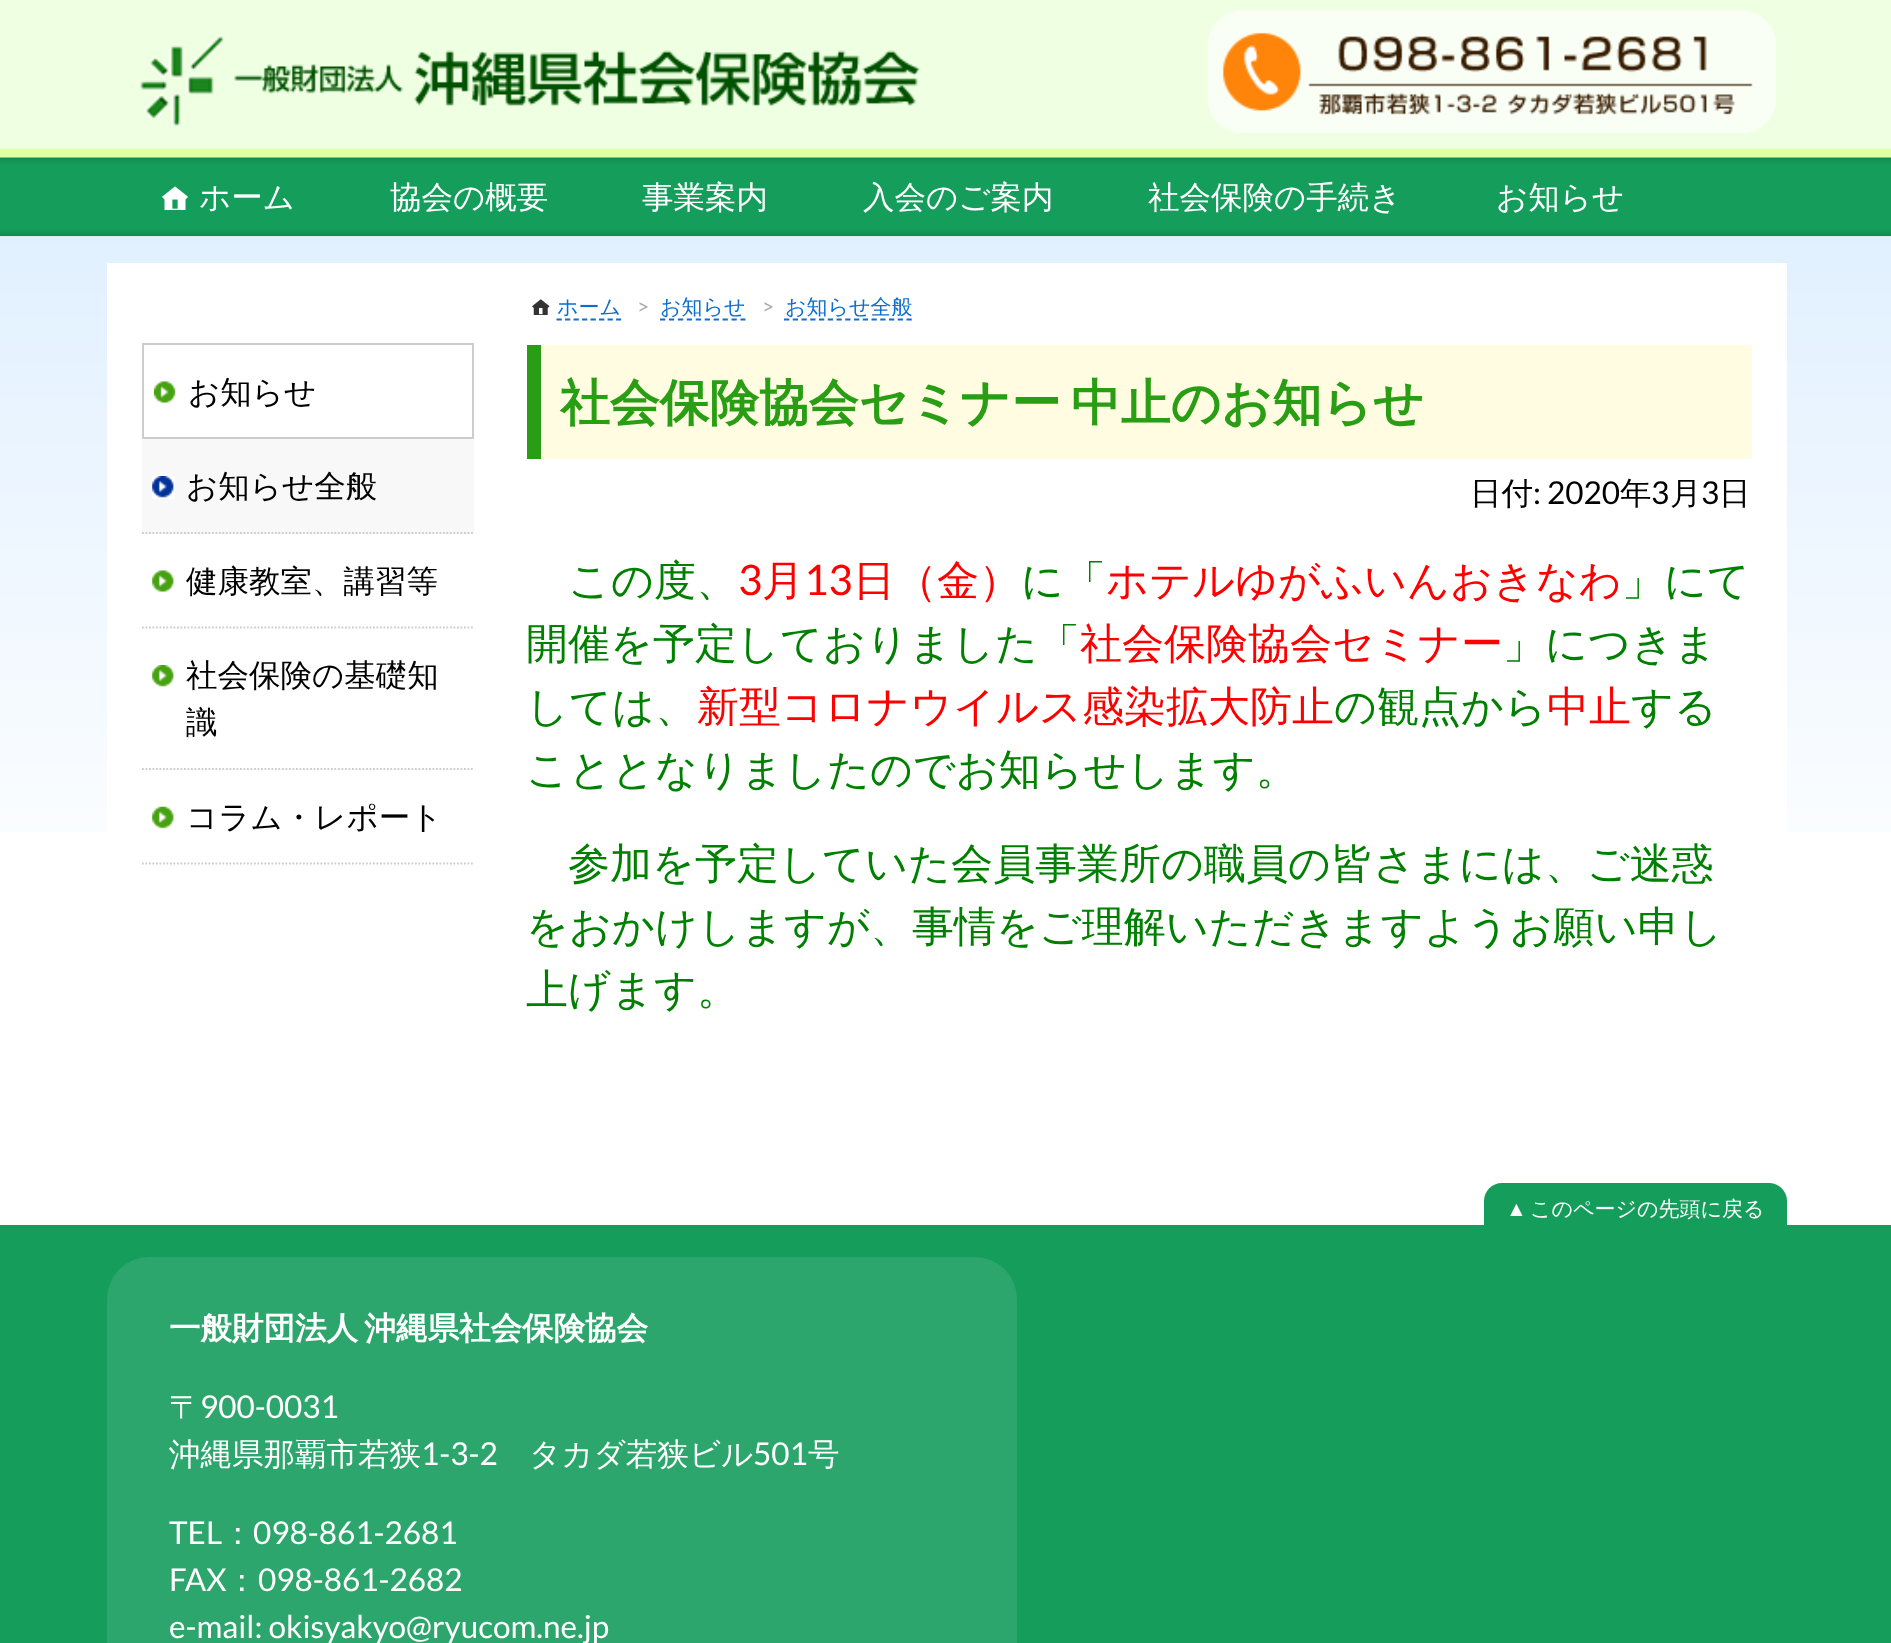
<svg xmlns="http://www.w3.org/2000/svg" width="1891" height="1643">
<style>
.a{font:500 31.5px WenQuanYi Zen Hei;fill:#fff}
.b{font:500 31.5px WenQuanYi Zen Hei;fill:#000}
.c{font:500 21px WenQuanYi Zen Hei;fill:#0d6ecf}
.d{font:21px Lato;fill:#aaa}
.e{font:bold 49.75px WenQuanYi Zen Hei;fill:#299e14}
.f{font:31.5px Lato;fill:#000}
.g{font:500 42px WenQuanYi Zen Hei;fill:#008000}
.h{font:42px Lato;fill:#f00}
.i{font:500 42px WenQuanYi Zen Hei;fill:#f00}
.j{font:21px Liberation Sans;fill:#fff}
.k{font:500 21px WenQuanYi Zen Hei;fill:#fff}
.l{font:bold 31.5px WenQuanYi Zen Hei;fill:#fff}
.m{font:31.5px Lato;fill:#fff}
</style>
<rect width="100%" height="100%" fill="#fff"/>
<path fill="#eeffe2" d="M0 0h1891v158H0z"/>
<image href="1.png" x="0" y="148" width="1891" height="10"/>
<image href="2.png" x="138" y="35" width="782" height="93"/>
<image href="3.png" x="1207" y="10" width="570" height="123"/>
<image href="4.png" x="0" y="157" width="1891" height="80"/>
<image href="5.png" x="162" y="186" width="26" height="24"/>
<image href="6.png" x="0" y="236" width="1891" height="596"/>
<path fill="#fff" d="M107 263h1680v569H107z"/>
<image href="7.png" x="154" y="381" width="22" height="22"/>
<path fill="none" stroke="#ccc" stroke-width="2" d="M143 344h330v94H143z"/>
<path fill="#f8f8f8" d="M142 439h332v95H142z"/>
<image href="8.png" x="152" y="476" width="23" height="23"/>
<path fill="none" stroke="#ccc" stroke-width="1.8" stroke-dasharray="1.75 1.75" d="M142 533h332"/>
<image href="9.png" x="152" y="570" width="22" height="22"/>
<path fill="none" stroke="#ccc" stroke-width="1.8" stroke-dasharray="1.75 1.75" d="M142 627.5h332"/>
<image href="10.png" x="152" y="665" width="22" height="22"/>
<path fill="none" stroke="#ccc" stroke-width="1.8" stroke-dasharray="1.75 1.75" d="M142 769h332"/>
<image href="11.png" x="152" y="806" width="22" height="23"/>
<path fill="none" stroke="#ccc" stroke-width="1.8" stroke-dasharray="1.75 1.75" d="M142 863.5h332"/>
<image href="12.png" x="532" y="299" width="18" height="16"/>
<path fill="none" stroke="#0d6ecf" stroke-width="1.8" stroke-dasharray="5.25 3.26" d="M556.5 319.5h64.5"/>
<path fill="none" stroke="#0d6ecf" stroke-width="1.8" stroke-dasharray="5.25 3.69" d="M660 319.5h85.5"/>
<path fill="none" stroke="#0d6ecf" stroke-width="1.8" stroke-dasharray="5.25 3.5" d="M784 319.5h128"/>
<path fill="#fffce2" d="M541 345h1211v114H541z"/>
<path fill="#299e14" d="M527 345h14v114H527z"/>
<path fill="#149d5b" d="M0 1225h1891v418H0z"/>
<path fill="#149d5b" d="M1502 1183h267c10 0 18 8 18 18v35h-303v-35c0-10 8-18 18-18z"/>
<rect fill="#2ca66c" x="107" y="1257" width="910" height="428" rx="42"/>
<text class="a" x="199" y="208">ホーム</text>
<text class="a" x="390" y="208">協会の概要</text>
<text class="a" x="642" y="208">事業案内</text>
<text class="a" x="863" y="208">入会のご案内</text>
<text class="a" x="1148" y="208">社会保険の手続き</text>
<text class="a" x="1496" y="208">お知らせ</text>
<text class="b" x="188" y="403">お知らせ</text>
<text class="b" x="186" y="497">お知らせ全般</text>
<text class="b" x="186" y="592">健康教室、講習等</text>
<text class="b" x="186" y="686">社会保険の基礎知</text>
<text class="b" x="186" y="733">識</text>
<text class="b" x="186" y="828">コラム・レポート</text>
<text class="c" x="557" y="314">ホーム</text>
<text class="d" x="637" y="314">&gt;</text>
<text class="c" x="660" y="314">お知らせ</text>
<text class="d" x="762" y="314">&gt;</text>
<text class="c" x="785" y="314">お知らせ全般</text>
<text class="e" x="560" y="420" word-spacing="-5">社会保険協会セミナー 中止のお知らせ</text>
<text class="b" x="1470" y="504">日付</text>
<text class="f" x="1533" y="504">: 2020</text>
<text class="b" x="1620" y="504">年</text>
<text class="f" x="1651" y="504">3</text>
<text class="b" x="1670" y="504">月</text>
<text class="f" x="1701" y="504">3</text>
<text class="b" x="1719" y="504">日</text>
<text class="g" x="568" y="595">この度、</text>
<text class="h" x="738" y="595">3</text>
<text class="i" x="762" y="595">月</text>
<text class="h" x="804" y="595">13</text>
<text class="i" x="853" y="595">日（金）</text>
<text class="g" x="1021" y="595">に「</text>
<text class="i" x="1106" y="595">ホテルゆがふいんおきなわ</text>
<text class="g" x="1622" y="595">」にて</text>
<text class="g" x="526" y="658">開催を予定しておりました「</text>
<text class="i" x="1080" y="658">社会保険協会セミナー</text>
<text class="g" x="1503" y="658">」につきま</text>
<text class="g" x="526" y="721">しては、</text>
<text class="i" x="697" y="721">新型コロナウイルス感染拡大防止</text>
<text class="g" x="1334" y="721">の観点から</text>
<text class="i" x="1547" y="721">中止</text>
<text class="g" x="1631" y="721">する</text>
<text class="g" x="526" y="784">こととなりましたのでお知らせします。</text>
<text class="g" x="568" y="878">参加を予定していた会員事業所の職員の皆さまには、ご迷惑</text>
<text class="g" x="526" y="941">をおかけしますが、事情をご理解いただきますようお願い申し</text>
<text class="g" x="526" y="1004">上げます。</text>
<text class="j" x="1506" y="1216">▲</text>
<text class="k" x="1530" y="1216">このページの先頭に戻る</text>
<text class="l" x="169" y="1339" word-spacing="-3">一般財団法人 沖縄県社会保険協会</text>
<text class="a" x="169" y="1418">〒</text>
<text class="m" x="200" y="1418">900-0031</text>
<text class="a" x="169" y="1465">沖縄県那覇市若狭</text>
<text class="m" x="421" y="1465">1-3-2</text>
<text class="a" x="529" y="1465">タカダ若狭ビル</text>
<text class="m" x="753" y="1465">501</text>
<text class="a" x="808" y="1465">号</text>
<text class="m" x="169" y="1544">TEL</text>
<text class="a" x="222" y="1544">：</text>
<text class="m" x="253" y="1544">098-861-2681</text>
<text class="m" x="169" y="1591">FAX</text>
<text class="a" x="226" y="1591">：</text>
<text class="m" x="258" y="1591">098-861-2682</text>
<text class="m" x="169" y="1638">e-mail: okisyakyo@ryucom.ne.jp</text>
</svg>
